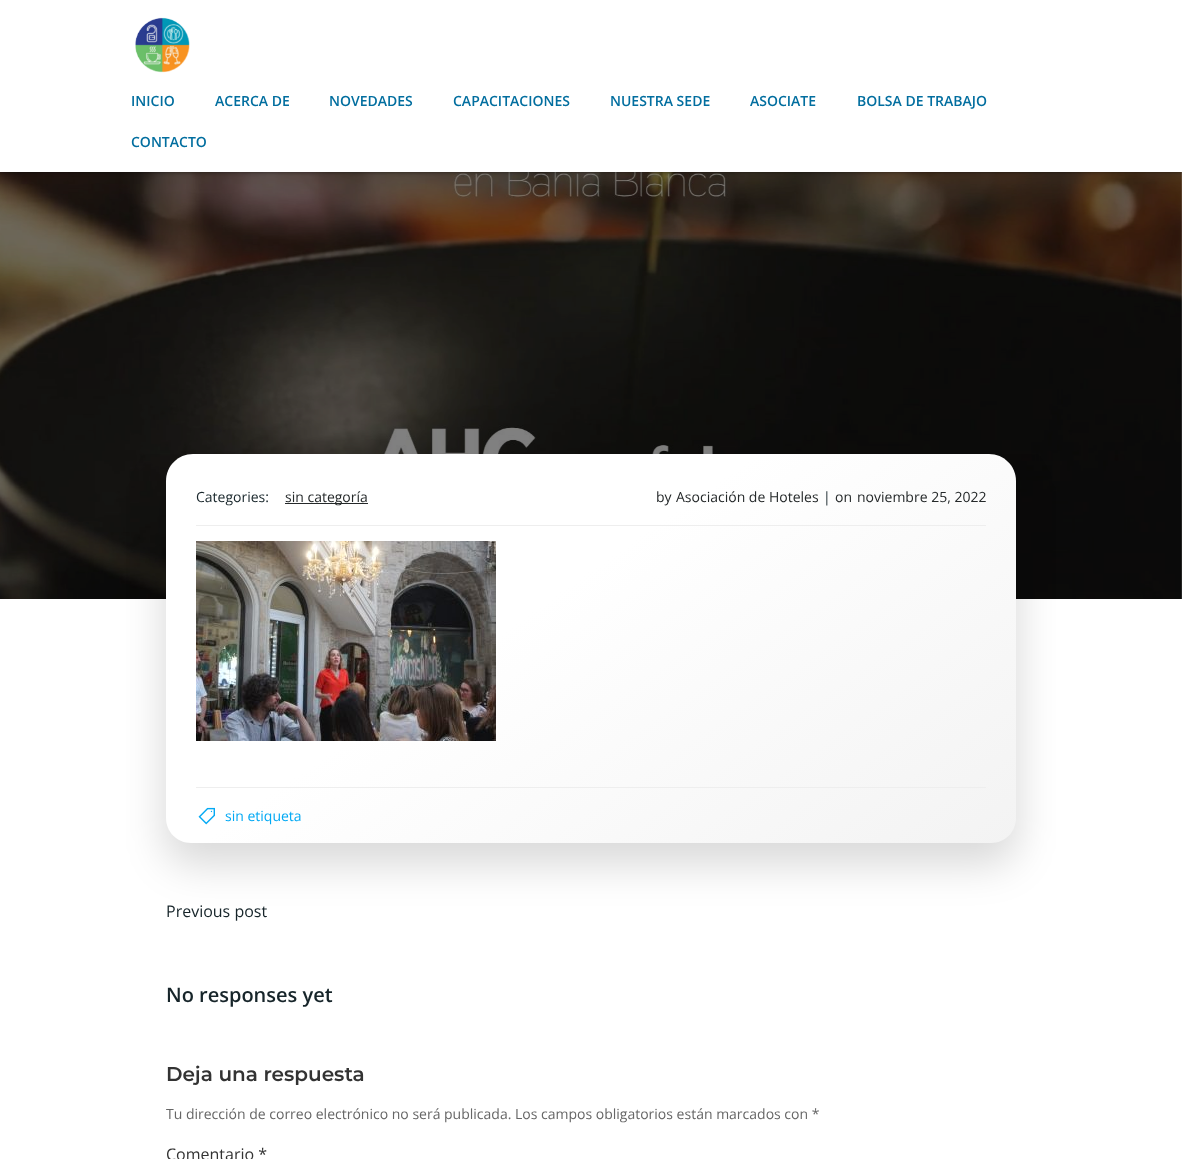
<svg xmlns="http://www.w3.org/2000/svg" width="1182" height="1159">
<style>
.a{font:600 14px Open Sans;fill:#026e9f}
.b{font:14px Open Sans;fill:#17252a}
.c{font:14px Open Sans;fill:#25292a}
.d{font:14px Open Sans;fill:#03a9f4}
.e{font:16px Open Sans;fill:#17252a}
.f{font:600 20px Open Sans;fill:#17252a}
.g{font:600 20px Montserrat;fill:#333}
.h{font:14px Open Sans;fill:#666}
.i{font:16px Open Sans;fill:#333}
</style>
<defs>
<clipPath id="clip1"><path d="M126 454h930v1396H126z"/></clipPath>
<linearGradient id="g1" gradientUnits="userSpaceOnUse" x1="360" y1="318" x2="822" y2="979"><stop offset="0.42" stop-color="#fff"/><stop offset="1" stop-color="#f3f3f3"/></linearGradient>
</defs>
<rect width="100%" height="100%" fill="#fff"/>
<image href="2.png" x="0" y="172" width="1182" height="427"/>
<path fill="#00000080" filter="blur(2px)" d="M0 0h1182v172H0z"/>
<path fill="#fff" d="M0 0h1182v172H0z"/>
<image href="1.png" x="135" y="17" width="55" height="56"/>
<g clip-path="url(#clip1)">
<rect fill="#00000026" filter="blur(20px)" x="164" y="472" width="854" height="393" rx="29"/>
</g>
<path fill="url(#g1)" d="M193 454h796c15 0 27 12 27 27v337c0 14-11 25-25 25h-800c-14 0-25-11-25-25v-337c0-15 12-27 27-27z"/>
<path fill="#eee" d="M196 525h790v1H196z"/>
<path fill="#25292a" d="M285 503h83v1H285z"/>
<image href="3.png" x="196" y="541" width="300" height="200"/>
<path fill="#eee" d="M196 787h790v1H196z"/>
<image href="4.png" x="198" y="807" width="17" height="18"/>
<text class="a" x="131" y="106">INICIO</text>
<text class="a" x="215" y="106">ACERCA DE</text>
<text class="a" x="329" y="106">NOVEDADES</text>
<text class="a" x="453" y="106">CAPACITACIONES</text>
<text class="a" x="610" y="106">NUESTRA SEDE</text>
<text class="a" x="750" y="106">ASOCIATE</text>
<text class="a" x="857" y="106">BOLSA DE TRABAJO</text>
<text class="a" x="131" y="147">CONTACTO</text>
<text class="b" x="196" y="502">Categories:</text>
<text class="c" x="285" y="502">sin categoría</text>
<text class="c" x="656" y="502">by</text>
<text class="c" x="676" y="502">Asociación de Hoteles</text>
<text class="b" x="823" y="502">|</text>
<text class="c" x="835" y="502">on</text>
<text class="c" x="857" y="502">noviembre 25, 2022</text>
<text class="d" x="225" y="821">sin etiqueta</text>
<text class="e" x="166" y="917">Previous post</text>
<text class="f" x="166" y="1002">No responses yet</text>
<text class="g" x="166" y="1081">Deja una respuesta</text>
<text class="h" x="166" y="1119">Tu dirección de correo electrónico no será publicada. Los campos obligatorios están marcados con *</text>
<text class="i" x="166" y="1160">Comentario *</text>
</svg>
